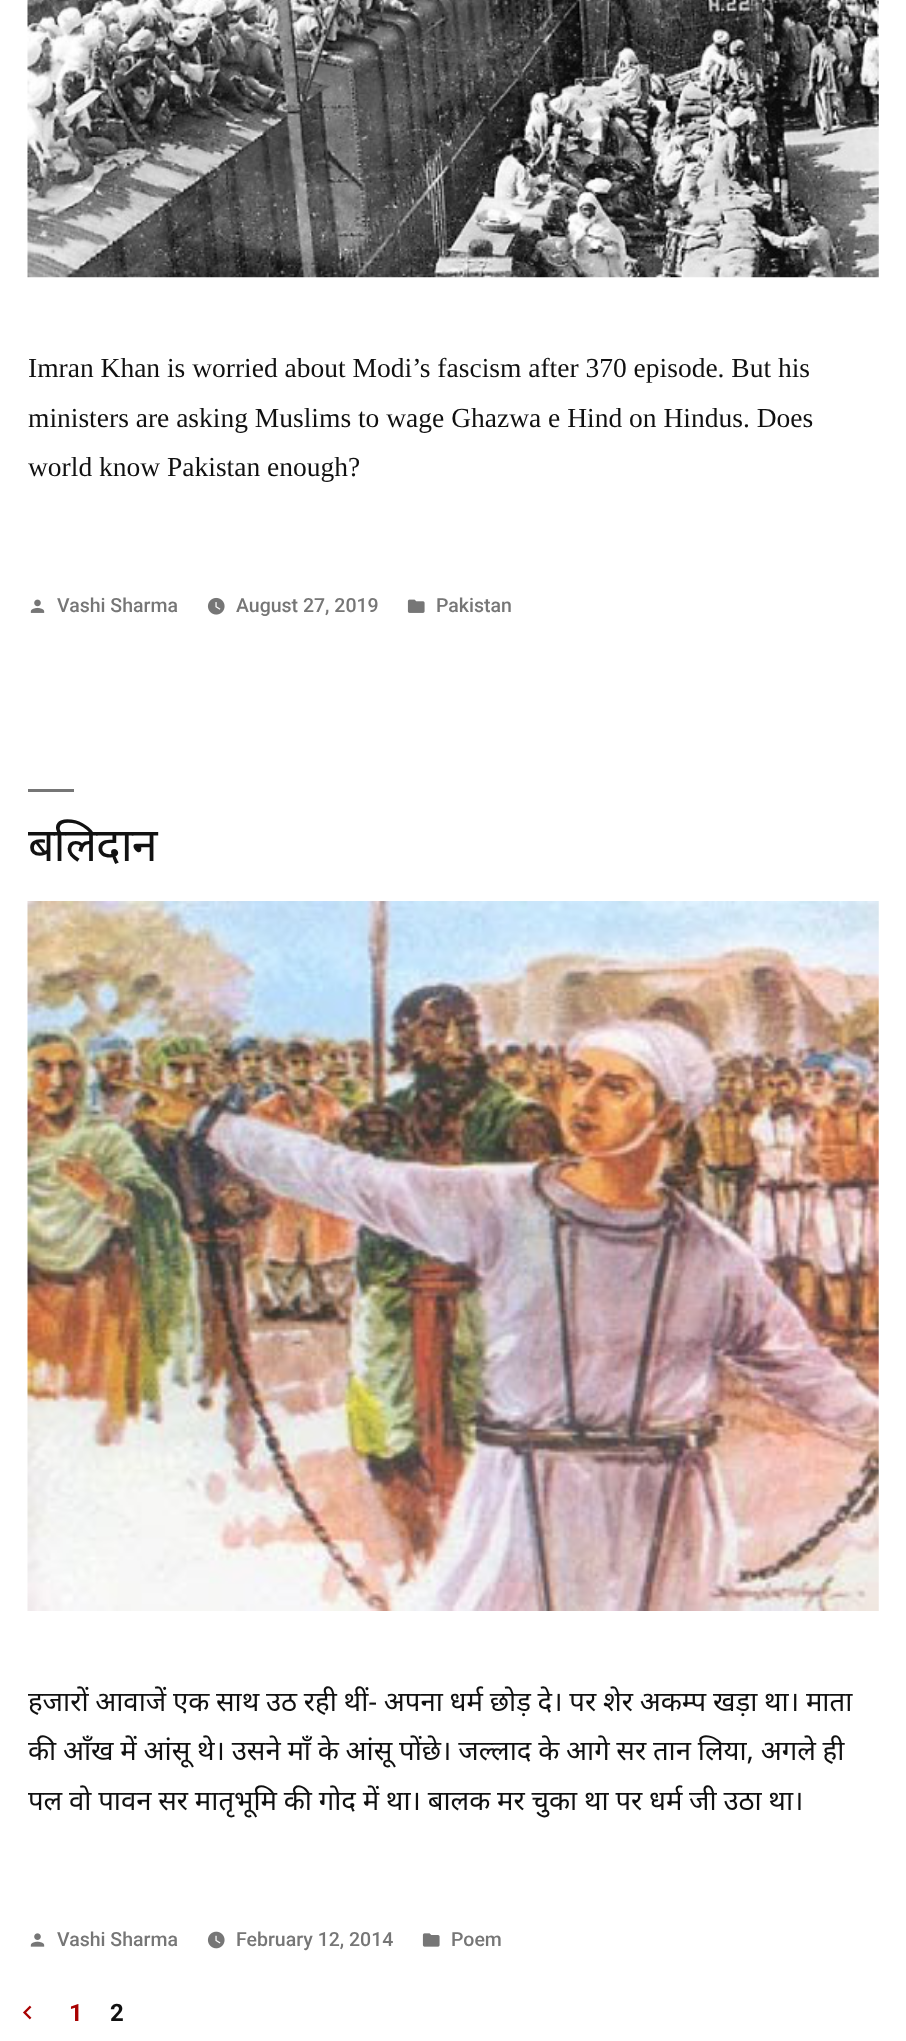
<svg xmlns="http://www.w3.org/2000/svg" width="906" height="2041">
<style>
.a{font:27.5px Liberation Serif;fill:#111}
.b{font:500 19.5px Roboto;fill:#767676}
.c{font:46.5px Noto Sans;letter-spacing:-1px;fill:#111}
.d{font:27.5px Noto Sans;fill:#111}
.e{font:bold 24px Roboto;fill:#a80000}
.f{font:bold 24px Roboto;fill:#111}
</style>
<rect width="100%" height="100%" fill="#fff"/>
<image href="1.png" x="27" y="0" width="852" height="278"/>
<image href="2.png" x="30" y="599" width="15" height="14"/>
<image href="3.png" x="207" y="597" width="18" height="18"/>
<image href="4.png" x="407" y="599" width="18" height="14"/>
<path fill="#767676" d="M28 789h46v3H28z"/>
<image href="5.png" x="27" y="901" width="852" height="710"/>
<image href="6.png" x="30" y="1933" width="15" height="14"/>
<image href="7.png" x="207" y="1931" width="18" height="18"/>
<image href="8.png" x="422" y="1933" width="18" height="14"/>
<image href="9.png" x="23" y="2005" width="9" height="15"/>
<text class="a" x="28" y="377">Imran Khan is worried about Modi’s fascism after 370 episode. But his</text>
<text class="a" x="28" y="427">ministers are asking Muslims to wage Ghazwa e Hind on Hindus. Does</text>
<text class="a" x="28" y="476">world know Pakistan enough?</text>
<text class="b" x="57" y="612">Vashi Sharma</text>
<text class="b" x="236" y="612">August 27, 2019</text>
<text class="b" x="436" y="612">Pakistan</text>
<text class="c" x="28" y="861">बलिदान</text>
<text class="d" x="28" y="1711" word-spacing="-0.4">हजारों आवाजें एक साथ उठ रही थीं- अपना धर्म छोड़ दे। पर शेर अकम्प खड़ा था। माता</text>
<text class="d" x="28" y="1760" word-spacing="-0.4">की आँख में आंसू थे। उसने माँ के आंसू पोंछे। जल्लाद के आगे सर तान लिया, अगले ही</text>
<text class="d" x="28" y="1810" word-spacing="-0.4">पल वो पावन सर मातृभूमि की गोद में था। बालक मर चुका था पर धर्म जी उठा था।</text>
<text class="b" x="57" y="1946">Vashi Sharma</text>
<text class="b" x="236" y="1946">February 12, 2014</text>
<text class="b" x="451" y="1946">Poem</text>
<text class="e" x="69" y="2021">1</text>
<text class="f" x="110" y="2021">2</text>
</svg>
